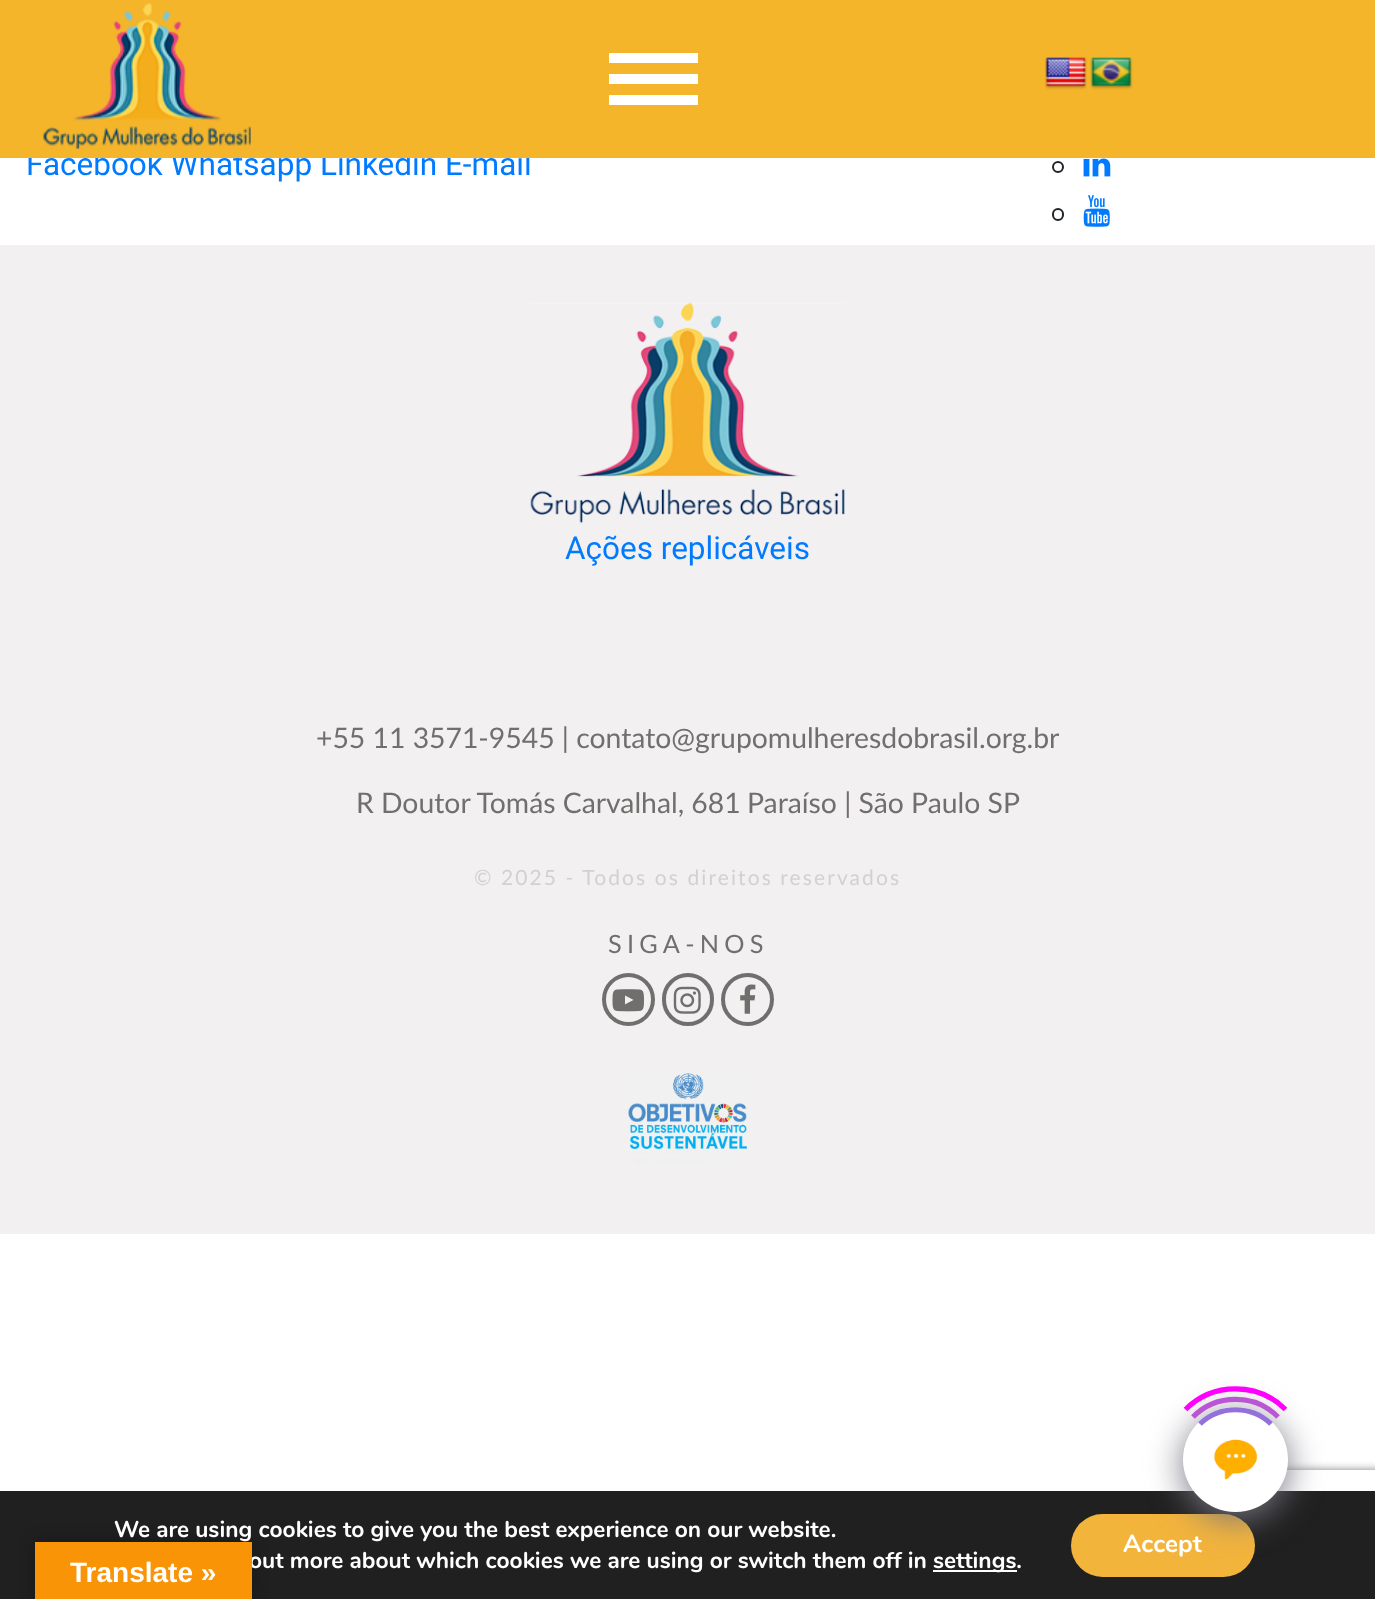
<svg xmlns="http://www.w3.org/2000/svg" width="1375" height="1599">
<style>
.a{font:31.5px Roboto;fill:#007bff}
.b{font:28.35px Lato;fill:#716e6e}
.c{font:21px Lato;letter-spacing:2.1px;fill:#d2d0d0}
.d{font:25.25px Lato;letter-spacing:5.25px;fill:#716e6e}
.e{font:bold 22.75px Nunito;fill:#fff}
.f{font:bold 24.5px Nunito;fill:#fff}
.g{font:bold 28px Liberation Sans;fill:#fff}
</style>
<defs>
<clipPath id="clip1"><path d="M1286 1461h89v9H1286z"/></clipPath>
</defs>
<rect width="100%" height="100%" fill="#fff"/>
<circle fill="none" stroke="#212529" stroke-width="2" cx="1058" cy="167" r="5"/>
<image href="4.png" x="1083" y="158" width="28" height="19"/>
<rect fill="none" stroke="#212529" stroke-width="2" x="1053" y="209" width="10" height="11" rx="5"/>
<image href="5.png" x="1083" y="195" width="27" height="32"/>
<path fill="#f2f0f1" d="M0 245h1375v989H0z"/>
<image href="6.png" x="530" y="302" width="315" height="222"/>
<circle fill="none" stroke="#716e6e" stroke-width="4" cx="628.5" cy="999.5" r="24.5"/>
<image href="7.png" x="612" y="989" width="32" height="23"/>
<rect fill="none" stroke="#716e6e" stroke-width="4" x="664" y="975" width="48" height="49" rx="24"/>
<image href="8.png" x="673" y="986" width="28" height="28"/>
<circle fill="none" stroke="#716e6e" stroke-width="4" cx="747.5" cy="999.5" r="24.5"/>
<image href="9.png" x="740" y="984" width="16" height="30"/>
<image href="10.png" x="628" y="1073" width="119" height="90"/>
<g clip-path="url(#clip1)">
<rect fill="#808080" filter="blur(4.5px)" x="1253" y="1470" width="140" height="105" rx="4"/>
</g>
<path fill="#202020" d="M0 1491h1375v108H0z"/>
<path fill="#fff" d="M1244 1489h9v2H1244z"/>
<rect fill="#f3b43c" x="1071" y="1514" width="184" height="63" rx="31.5"/>
<rect fill="#767580" filter="blur(17.5px)" x="1183" y="1414" width="105" height="105" rx="52.5"/>
<circle fill="#fff" cx="1235.5" cy="1459.5" r="52.5"/>
<path fill="none" stroke="#9370db" stroke-width="5.2" d="M1200 1424c19.5-19 51.5-19 71 0"/>
<path fill="none" stroke="#ba55d3" stroke-width="5.2" d="M1193 1417c23-23.5 62-23.5 85 0"/>
<path fill="none" stroke="#f0f" stroke-width="5.2" d="M1185.5 1409.5c27.5-27.5 72.5-27.5 100 0"/>
<image href="11.png" x="1214" y="1439" width="44" height="41"/>
<path fill="#fff" d="M933 1570h84v2H933z"/>
<path fill="#0000004d" filter="blur(8px)" d="M35 1542h217v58H35z"/>
<text class="a" x="26" y="175">Facebook Whatsapp Linkedin E-mail</text>
<path fill="#f4b52a" d="M0 0h1375v158H0z"/>
<image href="3.png" x="1090" y="57" width="43" height="33"/>
<image href="2.png" x="1045" y="57" width="42" height="33"/>
<path fill="#fff" d="M609 95h89v10H609z"/>
<path fill="#fff" d="M609 74h89v10H609z"/>
<path fill="#fff" d="M609 53h89v10H609z"/>
<image href="1.png" x="43" y="3" width="208" height="146"/>
<text class="a" x="565" y="559">Ações replicáveis</text>
<text class="b" x="316" y="748">+55 11 3571-9545 | contato@grupomulheresdobrasil.org.br</text>
<text class="b" x="356" y="813">R Doutor Tomás Carvalhal, 681</text>
<text class="b" x="747" y="813">Paraíso | São Paulo SP</text>
<text class="c" x="474" y="885">© 2025 - Todos os direitos reservados</text>
<text class="d" x="608" y="953">SIGA-NOS</text>
<text class="e" x="114" y="1537">We are using cookies to give you the best experience on our website.</text>
<text class="e" x="249" y="1568">out more about which cookies we are using or switch them off in</text>
<text class="e" x="933" y="1568">settings.</text>
<text class="f" x="1123" y="1552">Accept</text>
<path fill="#f89406" d="M35 1542h217v57H35z"/>
<text class="g" x="70" y="1582">Translate »</text>
</svg>
